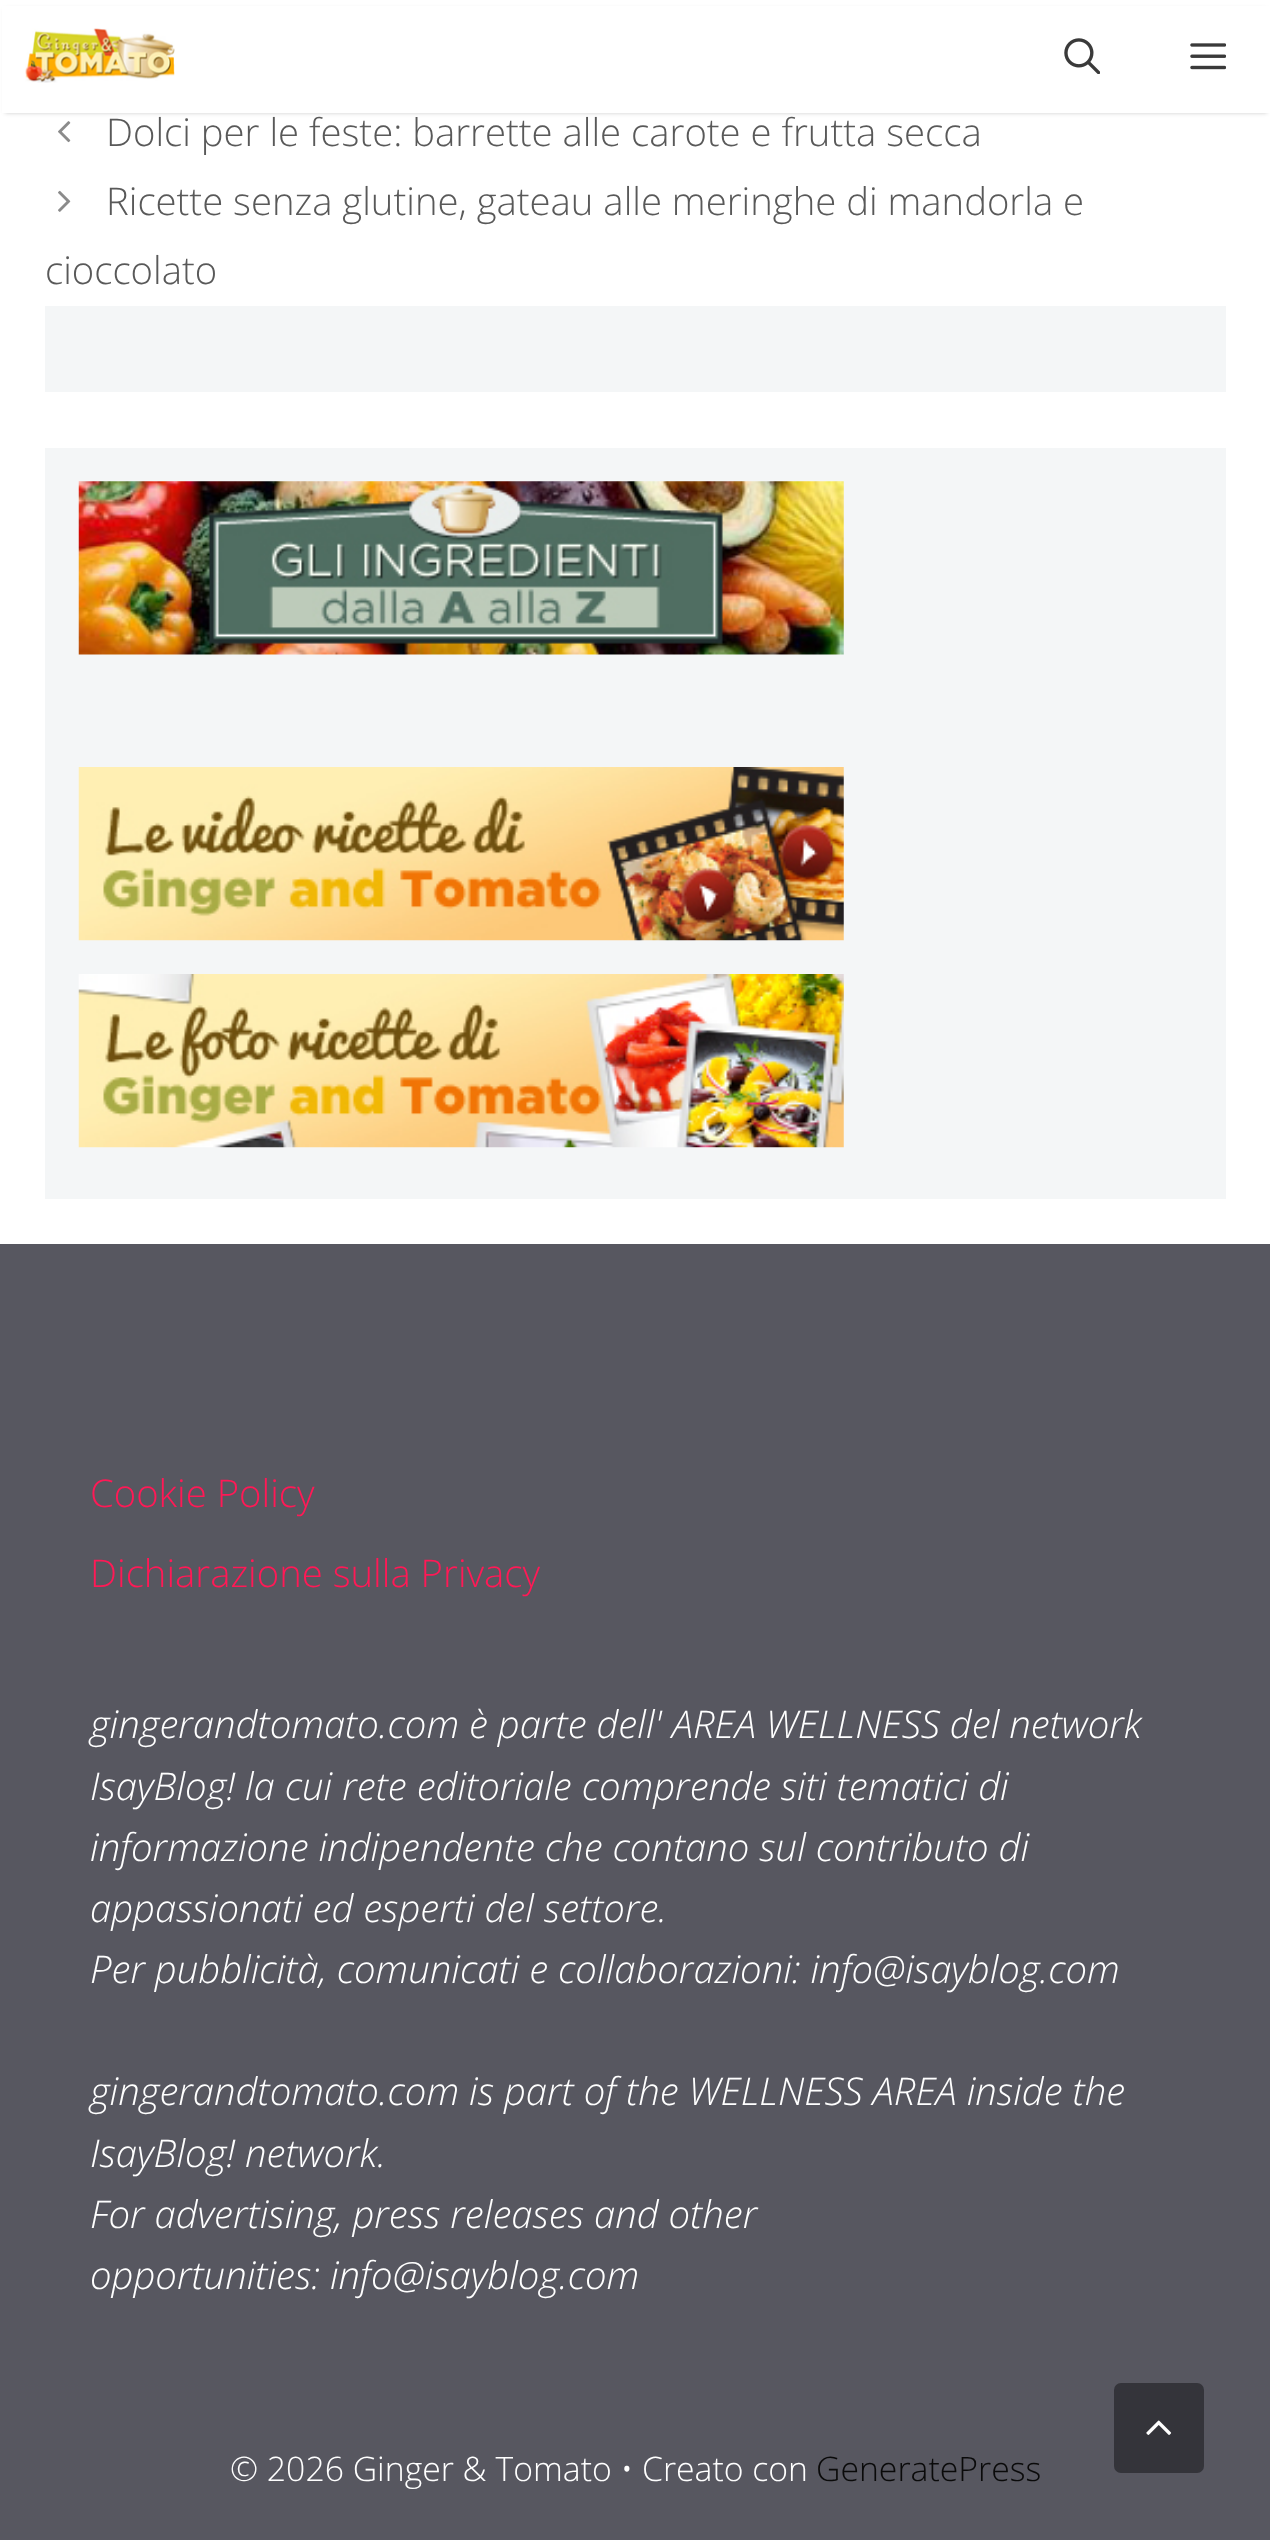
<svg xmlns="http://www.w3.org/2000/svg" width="1270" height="2540">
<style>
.a{font:300 38.25px Open Sans;fill:#595959}
.b{font:300 38.25px Open Sans;fill:#ff1956}
.c{font:italic 300 38.25px Open Sans;fill:#fff}
.d{font:300 33.75px Open Sans;fill:#fff}
.e{font:300 33.75px Open Sans;fill:#0a0a0a}
</style>
<rect width="100%" height="100%" fill="#fff"/>
<path fill="#00000033" filter="blur(2px)" d="M5 9h1262v104H5z"/>
<path fill="#fff" d="M2 6h1268v107H2z"/>
<image href="1.png" x="25" y="28" width="150" height="55"/>
<image href="2.png" x="1064" y="38" width="36" height="36"/>
<image href="3.png" x="1190" y="43" width="36" height="27"/>
<image href="4.png" x="58" y="121" width="13" height="22"/>
<image href="5.png" x="58" y="190" width="13" height="22"/>
<path fill="#f4f6f7" d="M45 306h1181v86H45z"/>
<path fill="#f4f6f7" d="M45 448h1181v751H45z"/>
<image href="6.png" x="78" y="481" width="766" height="174"/>
<image href="7.png" x="78" y="767" width="766" height="174"/>
<image href="8.png" x="78" y="974" width="766" height="174"/>
<path fill="#575760" d="M0 1244h1270v1296H0z"/>
<rect fill="#34343a" x="1114" y="2383" width="90" height="90" rx="7"/>
<image href="9.png" x="1146" y="2420" width="26" height="15"/>
<text class="a" x="106" y="146">Dolci per le feste: barrette alle carote e frutta secca</text>
<text class="a" x="106" y="215">Ricette senza glutine, gateau alle meringhe di mandorla e</text>
<text class="a" x="45" y="284">cioccolato</text>
<text class="b" x="90" y="1507">Cookie Policy</text>
<text class="b" x="90" y="1587">Dichiarazione sulla Privacy</text>
<text class="c" x="90" y="1738">gingerandtomato.com è parte dell' AREA WELLNESS del network</text>
<text class="c" x="90" y="1800">IsayBlog! la cui rete editoriale comprende siti tematici di</text>
<text class="c" x="90" y="1861">informazione indipendente che contano sul contributo di</text>
<text class="c" x="90" y="1922">appassionati ed esperti del settore.</text>
<text class="c" x="90" y="1983">Per pubblicità, comunicati e collaborazioni: info@isayblog.com</text>
<text class="c" x="90" y="2105">gingerandtomato.com is part of the WELLNESS AREA inside the</text>
<text class="c" x="90" y="2167">IsayBlog! network.</text>
<text class="c" x="90" y="2228">For advertising, press releases and other</text>
<text class="c" x="90" y="2289">opportunities: info@isayblog.com</text>
<text class="d" x="230" y="2481">© 2026 Ginger &amp; Tomato • Creato con</text>
<text class="e" x="816" y="2481">GeneratePress</text>
</svg>
